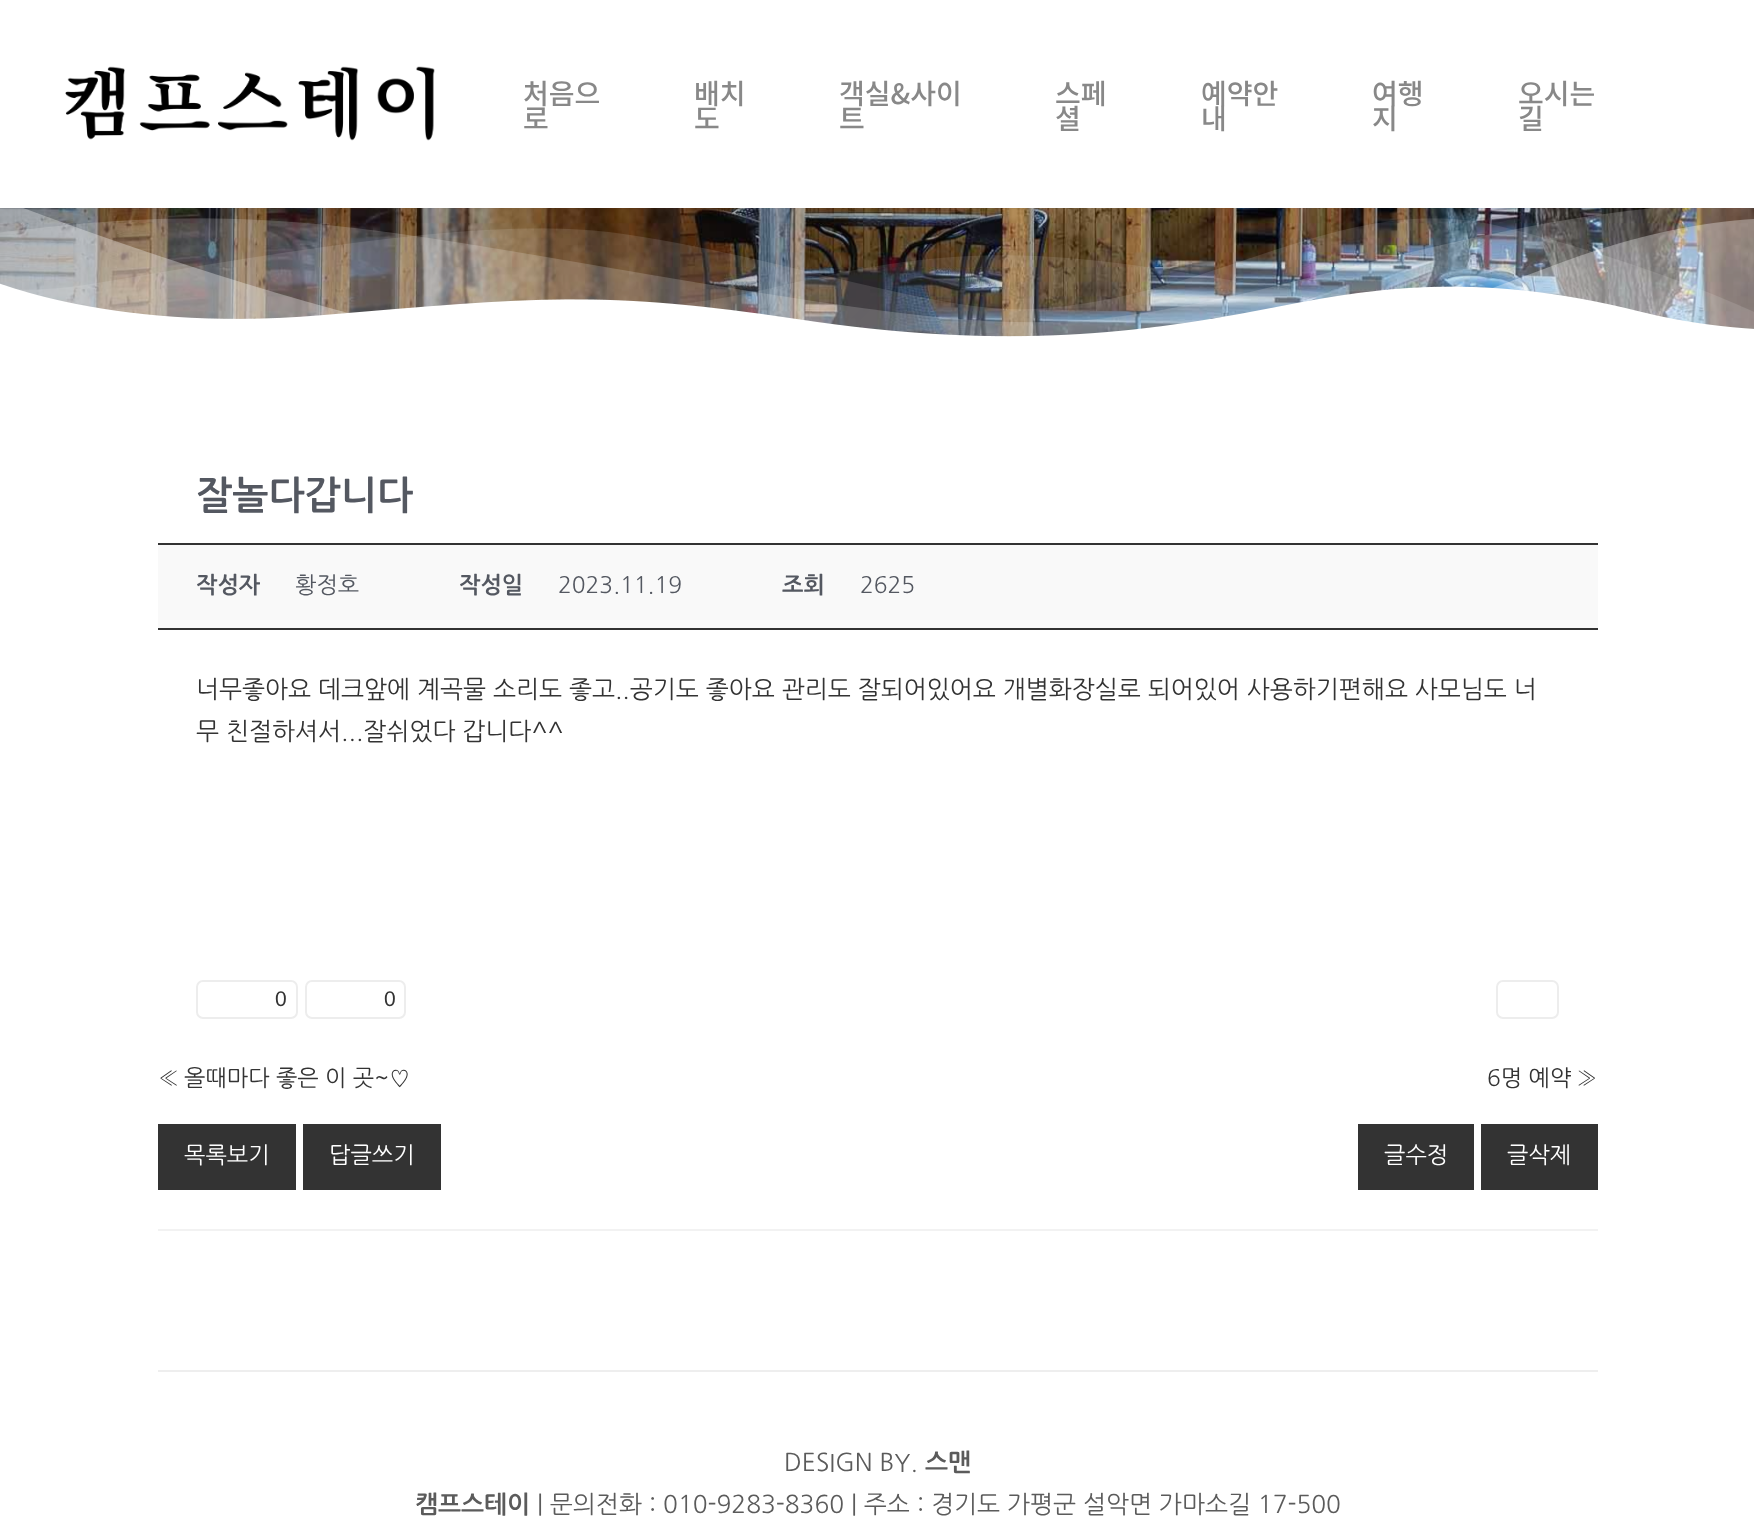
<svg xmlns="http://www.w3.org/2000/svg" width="1754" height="1531">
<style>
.a{font:500 28px Noto Sans KR;fill:#888}
.b{font:bold 38.5px NanumGothic;fill:#545861}
.c{font:bold 22.75px NanumGothic;fill:#545861}
.d{font:22.75px NanumGothic;fill:#545861}
.e{font:24.5px NanumGothic;fill:#333}
.f{font:21px Liberation Sans;fill:#333}
.g{font:22.75px NanumGothic;fill:#333}
.h{font:22.75px NanumGothic;fill:#fff}
.i{font:24.5px NanumGothic;fill:#5b5b5b}
.j{font:bold 24.5px NanumGothic;fill:#5b5b5b}
</style>
<rect width="100%" height="100%" fill="#fff"/>
<image href="1.png" x="65" y="66" width="370" height="75"/>
<image href="2.png" x="0" y="208" width="1754" height="129"/>
<image href="3.png" x="0" y="208" width="1754" height="135"/>
<path fill="#f2f2f2" d="M158 1229h1440v2H158z"/>
<path fill="#f9f9f9" d="M158 545h1440v83H158z"/>
<path fill="#333" d="M158 543h1440v2H158z"/>
<path fill="#333" d="M158 628h1440v2H158z"/>
<rect fill="none" stroke="#ededed" stroke-width="2" x="197" y="981" width="100" height="37" rx="6"/>
<rect fill="none" stroke="#ededed" stroke-width="2" x="306" y="981" width="99" height="37" rx="6"/>
<rect fill="none" stroke="#ededed" stroke-width="2" x="1497" y="981" width="61" height="37" rx="6"/>
<path fill="#333" d="M158 1124h138v66H158z"/>
<path fill="#333" d="M303 1124h138v66H303z"/>
<path fill="#333" d="M1358 1124h116v66H1358z"/>
<path fill="#333" d="M1481 1124h117v66H1481z"/>
<path fill="#eee" d="M158 1370h1440v2H158z"/>
<text class="a" x="523" y="104">처음으</text>
<text class="a" x="523" y="129">로</text>
<text class="a" x="694" y="104">배치</text>
<text class="a" x="694" y="129">도</text>
<text class="a" x="839" y="104">객실&amp;사이</text>
<text class="a" x="839" y="129">트</text>
<text class="a" x="1055" y="104">스페</text>
<text class="a" x="1055" y="129">셜</text>
<text class="a" x="1201" y="104">예약안</text>
<text class="a" x="1201" y="129">내</text>
<text class="a" x="1372" y="104">여행</text>
<text class="a" x="1372" y="129">지</text>
<text class="a" x="1518" y="104">오시는</text>
<text class="a" x="1518" y="129">길</text>
<text class="b" x="196" y="509">잘놀다갑니다</text>
<text class="c" x="196" y="593">작성자</text>
<text class="d" x="295" y="593">황정호</text>
<text class="c" x="459" y="593">작성일</text>
<text class="d" x="558" y="593">2023.11.19</text>
<text class="c" x="782" y="593">조회</text>
<text class="d" x="860" y="593">2625</text>
<text class="e" x="196" y="698">너무좋아요 데크앞에 계곡물 소리도 좋고..공기도 좋아요 관리도 잘되어있어요 개별화장실로 되어있어 사용하기편해요 사모님도 너</text>
<text class="e" x="196" y="740">무 친절하셔서...잘쉬었다 갑니다^^</text>
<text class="f" x="275" y="1006">0</text>
<text class="f" x="384" y="1006">0</text>
<text class="g" x="158" y="1086">«</text>
<text class="g" x="184" y="1086">올때마다 좋은 이 곳~♡</text>
<text class="g" x="1487" y="1086">6명 예약</text>
<text class="g" x="1576" y="1086">»</text>
<text class="h" x="184" y="1163">목록보기</text>
<text class="h" x="329" y="1163">답글쓰기</text>
<text class="h" x="1384" y="1163">글수정</text>
<text class="h" x="1507" y="1163">글삭제</text>
<text class="i" x="784" y="1471">DESIGN BY.</text>
<text class="j" x="925" y="1471">스맨</text>
<text class="j" x="415" y="1513">캠프스테이</text>
<text class="i" x="537" y="1513">| 문의전화 : 010-9283-8360 | 주소 : 경기도 가평군 설악면 가마소길 17-500</text>
</svg>
